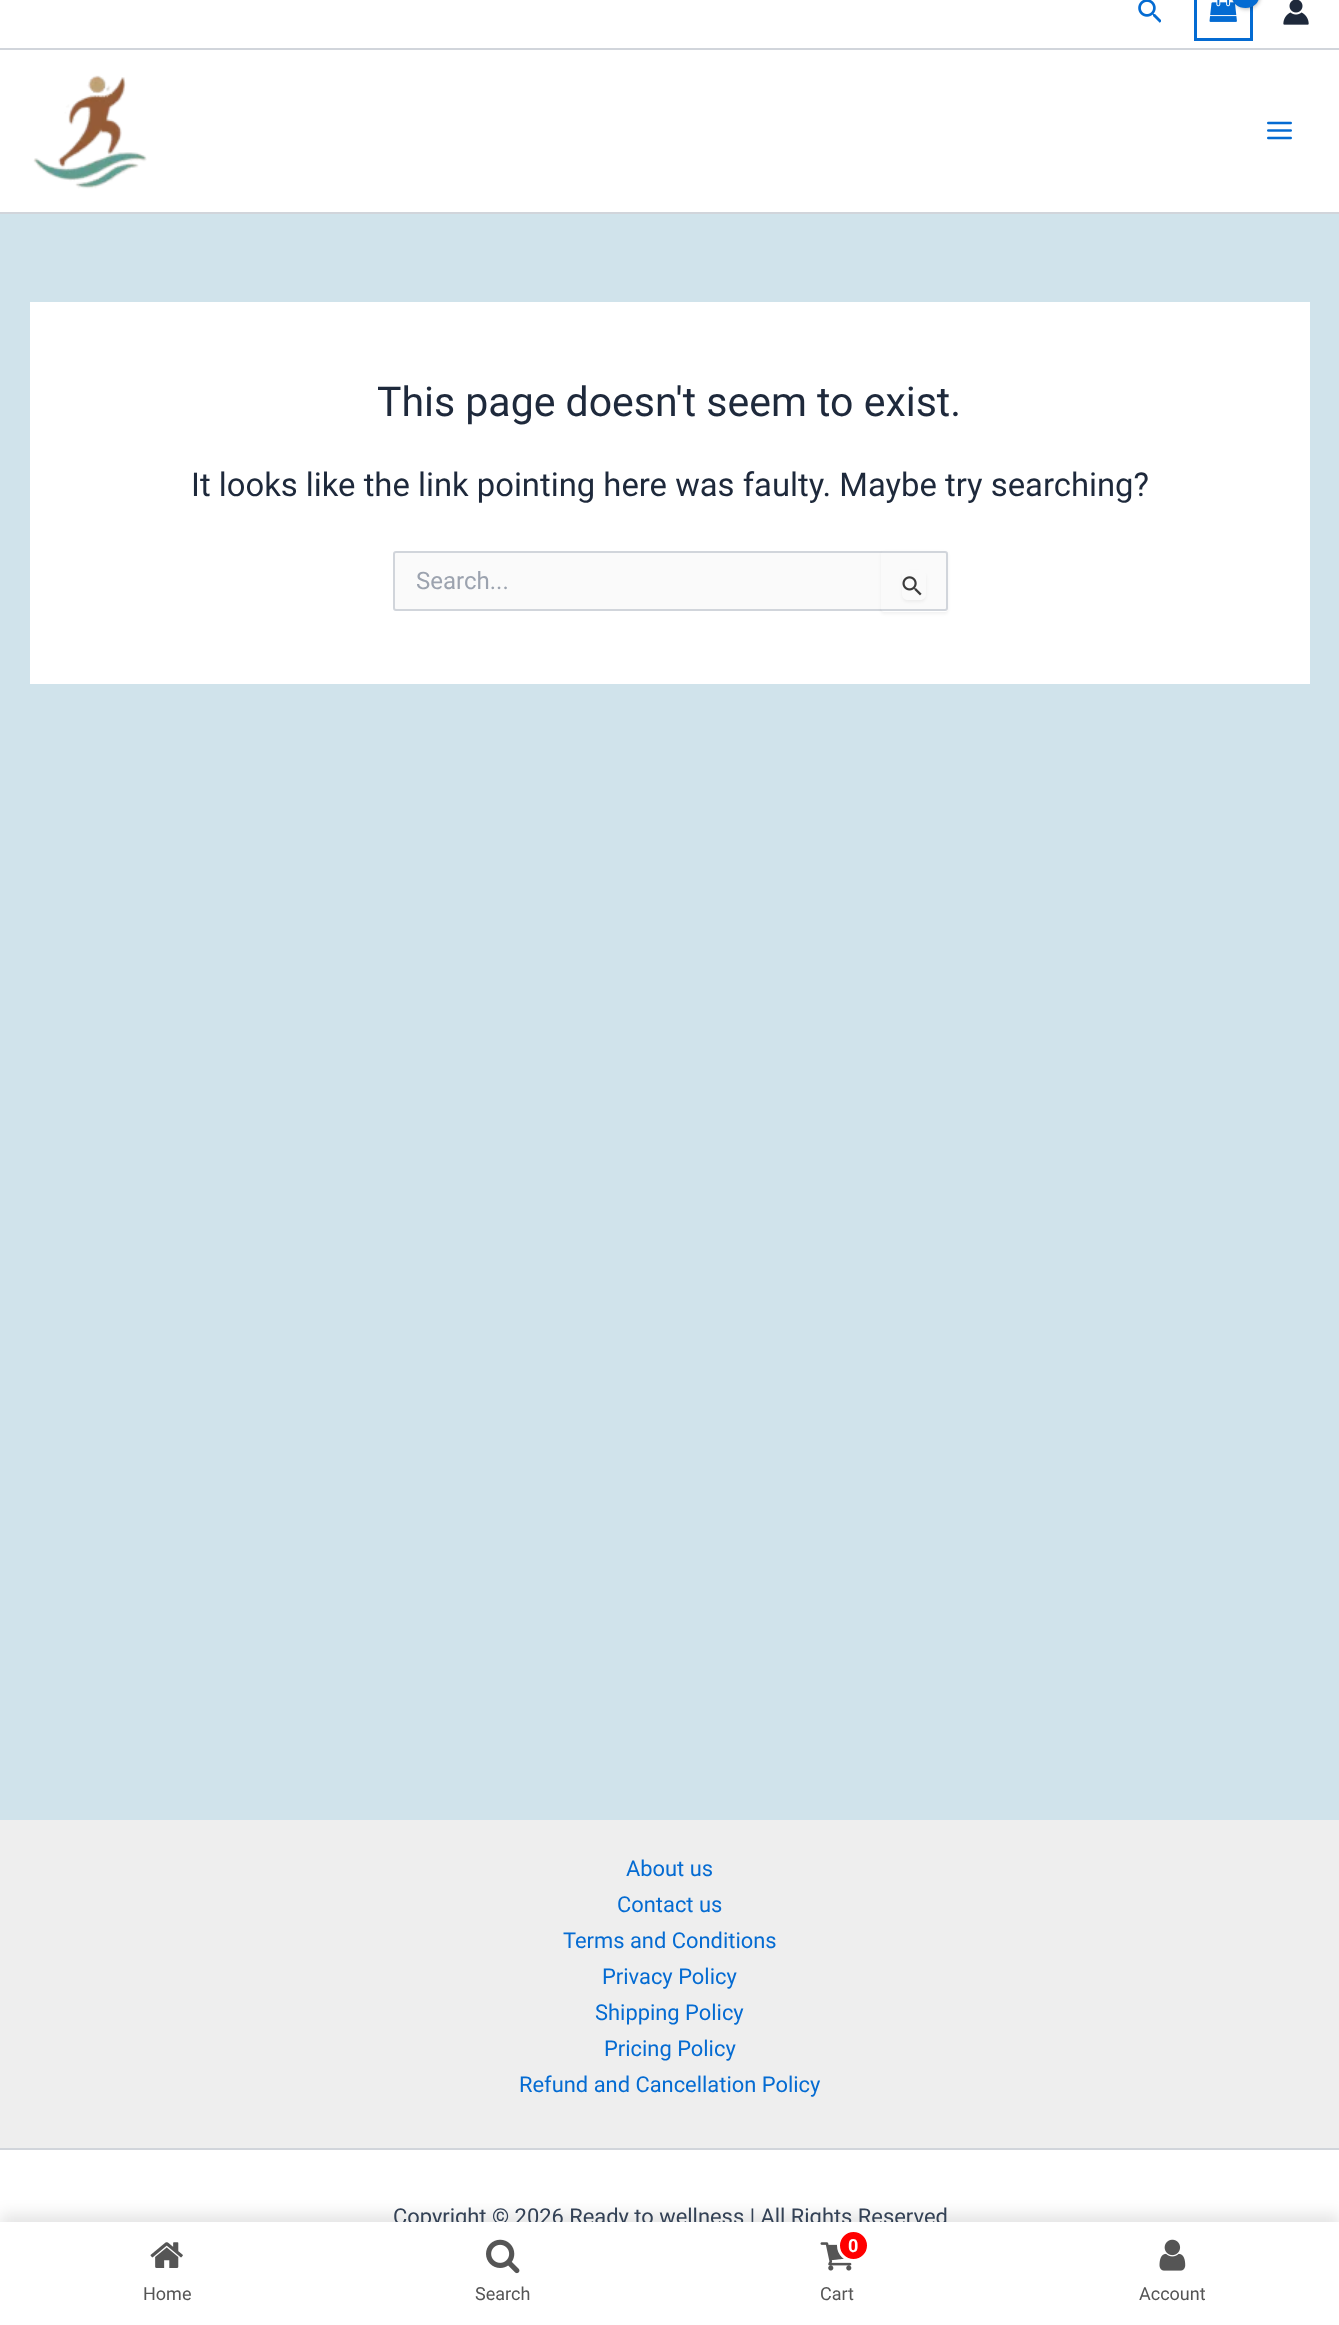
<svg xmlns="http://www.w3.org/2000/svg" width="1339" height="2325">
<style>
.a{font:41px Roboto;fill:#1e293b}
.b{font:32.8px Roboto;fill:#1e293b}
.c{font:24px Roboto;fill:#9ca3af}
.d{font:21.9px Roboto;fill:#046bd2}
.e{font:21.9px Roboto;fill:#334155}
.f{font:18px Roboto;fill:#555}
.g{font:bold 18px Roboto;fill:#fff}
</style>
<defs>
<clipPath id="clip1"><path d="M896 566h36v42h-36zm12 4h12c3.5 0 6 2.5 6 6v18c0 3.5-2.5 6-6 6h-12c-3.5 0-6-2.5-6-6v-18c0-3.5 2.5-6 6-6z" clip-rule="evenodd"/></clipPath>
<clipPath id="clip2"><path d="M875 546h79v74h-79zm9 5h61c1.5 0 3 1.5 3 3v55c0 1.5-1.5 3-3 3h-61c-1.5 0-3-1.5-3-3v-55c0-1.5 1.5-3 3-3z" clip-rule="evenodd"/></clipPath>
</defs>
<rect width="100%" height="100%" fill="#d0e3eb"/>
<path fill="#fff" d="M0 0h1339v48H0z"/>
<path fill="#d1d5db" d="M0 48h1339v2H0z"/>
<image href="1.png" x="1138" y="0" width="23" height="23"/>
<path fill="none" stroke="#046bd2" stroke-width="3" d="M1195.5 -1.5h56v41H1195.5z"/>
<image href="2.png" x="1209" y="0" width="28" height="22"/>
<rect fill="#0000004d" filter="blur(2px)" x="1233" y="-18" width="27" height="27" rx="13.5"/>
<rect fill="#046bd2" x="1232" y="-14" width="27" height="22" rx="13.5"/>
<image href="3.png" x="1283" y="0" width="26" height="25"/>
<path fill="#fff" d="M0 50h1339v162H0z"/>
<path fill="#d1d5db" d="M0 212h1339v2H0z"/>
<image href="4.png" x="33" y="75" width="114" height="114"/>
<image href="5.png" x="1267" y="121" width="25" height="19"/>
<path fill="#fff" d="M30 302h1280v382H30z"/>
<rect fill="#fafafa" stroke="#d1d5db" stroke-width="2" x="394" y="552" width="553" height="58" rx="2"/>
<g clip-path="url(#clip1)">
<rect fill="#0000000d" filter="blur(1.5px)" x="902" y="572" width="24" height="30" rx="6"/>
</g>
<image href="6.png" x="902" y="576" width="20" height="20"/>
<g clip-path="url(#clip2)">
<rect fill="#0000000d" filter="blur(1.5px)" x="881" y="552" width="67" height="62" rx="3"/>
</g>
<path fill="#eee" d="M0 1820h1339v328H0z"/>
<path fill="#fff" d="M0 2150h1339v72H0z"/>
<path fill="#d1d5db" d="M0 2148h1339v2H0z"/>
<path fill="#0000001a" filter="blur(7.5px)" d="M0 2214h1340v104H0z"/>
<text class="a" x="377" y="416">This page doesn't seem to exist.</text>
<text class="b" x="191" y="496">It looks like the link pointing here was faulty. Maybe try searching?</text>
<text class="c" x="416" y="589">Search...</text>
<text class="d" x="626" y="1876">About us</text>
<text class="d" x="617" y="1912">Contact us</text>
<text class="d" x="563" y="1948">Terms and Conditions</text>
<text class="d" x="602" y="1984">Privacy Policy</text>
<text class="d" x="595" y="2020">Shipping Policy</text>
<text class="d" x="604" y="2056">Pricing Policy</text>
<text class="d" x="519" y="2092">Refund and Cancellation Policy</text>
<text class="e" x="393" y="2224">Copyright © 2026 Ready to wellness | All Rights Reserved</text>
<path fill="#fff" d="M0 2222h1339v103H0z"/>
<image href="7.png" x="150" y="2242" width="33" height="26"/>
<text class="f" x="143" y="2300">Home</text>
<image href="8.png" x="486" y="2239" width="34" height="35"/>
<text class="f" x="475" y="2300">Search</text>
<image href="9.png" x="820" y="2242" width="32" height="29"/>
<circle fill="#f00" stroke="#fff" stroke-width="3" cx="853.5" cy="2245.5" r="15"/>
<text class="g" x="848" y="2252">0</text>
<text class="f" x="820" y="2300">Cart</text>
<image href="10.png" x="1159" y="2239" width="27" height="32"/>
<text class="f" x="1139" y="2300">Account</text>
</svg>
